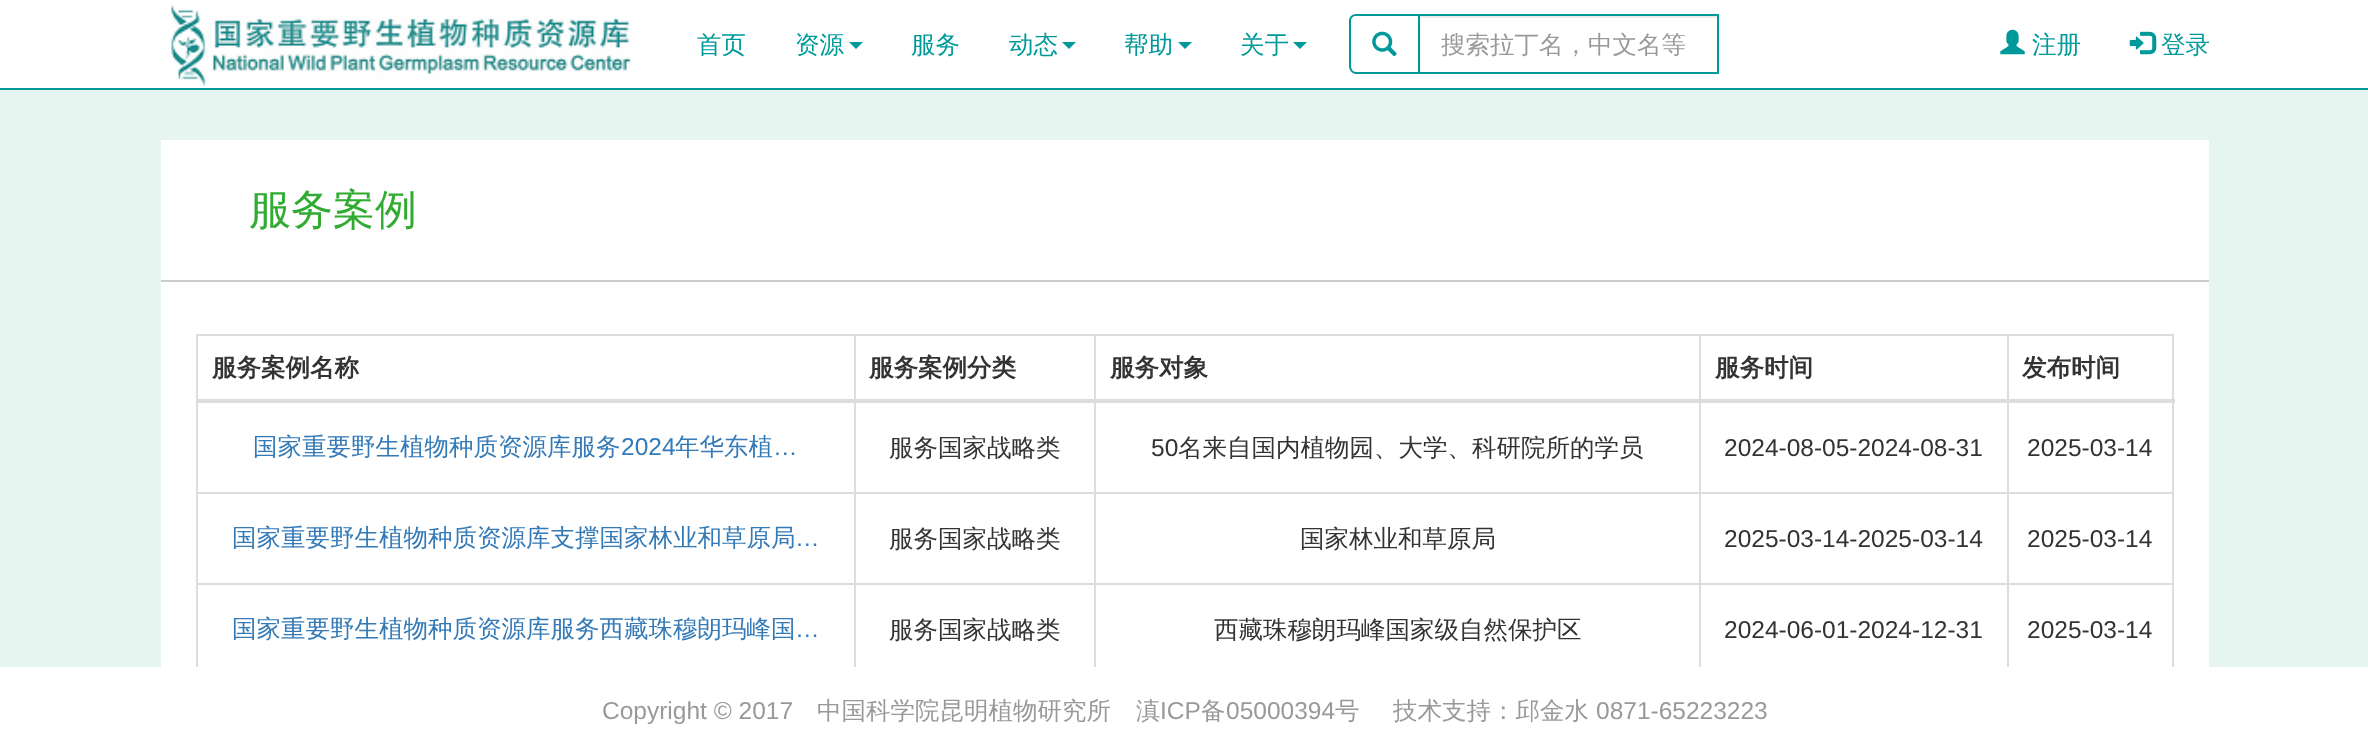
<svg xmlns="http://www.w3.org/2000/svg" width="2368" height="753">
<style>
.a{font:500 24.5px WenQuanYi Zen Hei;fill:#099}
.b{font:500 24.5px WenQuanYi Zen Hei;fill:#999}
.c{font:500 42px WenQuanYi Zen Hei;fill:#31ab31}
.d{font:bold 24.5px WenQuanYi Zen Hei;fill:#333}
.e{font:500 24.5px WenQuanYi Zen Hei;fill:#337ab7}
.f{font:24.5px Liberation Sans;fill:#337ab7}
.g{font:500 24.5px WenQuanYi Zen Hei;fill:#333}
.h{font:24.5px Liberation Sans;fill:#333}
.i{font:24.5px Liberation Sans;fill:#999}
</style>
<rect width="100%" height="100%" fill="#e6f5f0"/>
<path fill="#fff" d="M0 0h2368v88H0z"/>
<path fill="#099" d="M0 88h2368v2H0z"/>
<image href="1.png" x="171" y="5" width="460" height="82"/>
<path fill="#099" d="M849 42h14l-7 7z"/>
<path fill="#099" d="M1062 42h14l-7 7z"/>
<path fill="#099" d="M1178 42h14l-7 7z"/>
<path fill="#099" d="M1293 42h14l-7 7z"/>
<path fill="#099" fill-rule="evenodd" d="M1356 14h62v60h-62c-4 0-7-4-7-8v-45c0-4 3-7 7-7zm0 2h62v56h-62c-3 0-5-3-5-6v-45c0-3 2-5 5-5z"/>
<image href="2.png" x="1372" y="31" width="25" height="26"/>
<path fill="#ececec" d="M1419 16h298v2H1419z"/>
<path fill="none" stroke="#099" stroke-width="2" d="M1419 15h299v58H1419z"/>
<image href="3.png" x="2000" y="29" width="25" height="26"/>
<image href="4.png" x="2129" y="31" width="28" height="24"/>
<path fill="#fff" d="M161 140h2048v527H161z"/>
<path fill="#ccc" d="M161 280h2048v2H161z"/>
<path fill="#ddd" d="M196 334h1978v2H196z"/>
<path fill="#ddd" d="M2172 334h2v333H2172z"/>
<path fill="#ddd" d="M196 334h2v333H196z"/>
<path fill="#ddd" d="M2007 492h167v2H2007z"/>
<path fill="#ddd" d="M2007 583h167v2H2007z"/>
<path fill="#ddd" d="M2007 583h2v84H2007z"/>
<path fill="#ddd" d="M1699 583h310v2H1699z"/>
<path fill="#ddd" d="M2007 492h2v93H2007z"/>
<path fill="#ddd" d="M1699 492h310v2H1699z"/>
<path fill="#ddd" d="M1699 583h2v84H1699z"/>
<path fill="#ddd" d="M1094 583h607v2H1094z"/>
<path fill="#ddd" d="M1699 492h2v93H1699z"/>
<path fill="#ddd" d="M1094 492h607v2H1094z"/>
<path fill="#ddd" d="M1094 583h2v84H1094z"/>
<path fill="#ddd" d="M854 583h242v2H854z"/>
<path fill="#ddd" d="M1094 492h2v93H1094z"/>
<path fill="#ddd" d="M854 492h242v2H854z"/>
<path fill="#ddd" d="M854 583h2v84H854z"/>
<path fill="#ddd" d="M196 583h660v2H196z"/>
<path fill="#ddd" d="M854 492h2v93H854z"/>
<path fill="#ddd" d="M196 492h660v2H196z"/>
<path fill="#ddd" d="M854 334h2v160H854z"/>
<path fill="#ddd" d="M1094 334h2v160H1094z"/>
<path fill="#ddd" d="M1699 334h2v160H1699z"/>
<path fill="#ddd" d="M2007 334h2v160H2007z"/>
<path fill="#ddd" d="M196 399h1979v4H196z"/>
<path fill="#fff" d="M0 667h2368v86H0z"/>
<text class="a" x="697" y="53">首页</text>
<text class="a" x="795" y="53">资源</text>
<text class="a" x="911" y="53">服务</text>
<text class="a" x="1009" y="53">动态</text>
<text class="a" x="1124" y="53">帮助</text>
<text class="a" x="1240" y="53">关于</text>
<text class="b" x="1441" y="53">搜索拉丁名，中文名等</text>
<text class="a" x="2032" y="53">注册</text>
<text class="a" x="2161" y="53">登录</text>
<text class="c" x="249" y="224">服务案例</text>
<text class="d" x="212" y="376">服务案例名称</text>
<text class="d" x="869" y="376">服务案例分类</text>
<text class="d" x="1110" y="376">服务对象</text>
<text class="d" x="1715" y="376">服务时间</text>
<text class="d" x="2022" y="376">发布时间</text>
<text class="e" x="253" y="455">国家重要野生植物种质资源库服务</text>
<text class="f" x="621" y="455">2024</text>
<text class="e" x="675" y="455">年华东植</text>
<text class="f" x="773" y="455">…</text>
<text class="g" x="889" y="456">服务国家战略类</text>
<text class="h" x="1151" y="456">50</text>
<text class="g" x="1178" y="456">名来自国内植物园、大学、科研院所的学员</text>
<text class="h" x="1724" y="456">2024-08-05-2024-08-31</text>
<text class="h" x="2027" y="456">2025-03-14</text>
<text class="e" x="232" y="546">国家重要野生植物种质资源库支撑国家林业和草原局</text>
<text class="f" x="795" y="546">…</text>
<text class="g" x="889" y="547">服务国家战略类</text>
<text class="g" x="1300" y="547">国家林业和草原局</text>
<text class="h" x="1724" y="547">2025-03-14-2025-03-14</text>
<text class="h" x="2027" y="547">2025-03-14</text>
<text class="e" x="232" y="637">国家重要野生植物种质资源库服务西藏珠穆朗玛峰国</text>
<text class="f" x="795" y="637">…</text>
<text class="g" x="889" y="638">服务国家战略类</text>
<text class="g" x="1214" y="638">西藏珠穆朗玛峰国家级自然保护区</text>
<text class="h" x="1724" y="638">2024-06-01-2024-12-31</text>
<text class="h" x="2027" y="638">2025-03-14</text>
<text class="i" x="602" y="719">Copyright © 2017</text>
<text class="b" x="817" y="719">中国科学院昆明植物研究所</text>
<text class="b" x="1136" y="719">滇</text>
<text class="i" x="1160" y="719">ICP</text>
<text class="b" x="1201" y="719">备</text>
<text class="i" x="1226" y="719">05000394</text>
<text class="b" x="1335" y="719">号</text>
<text class="b" x="1393" y="719">技术支持：邱金水</text>
<text class="i" x="1596" y="719">0871-65223223</text>
</svg>
